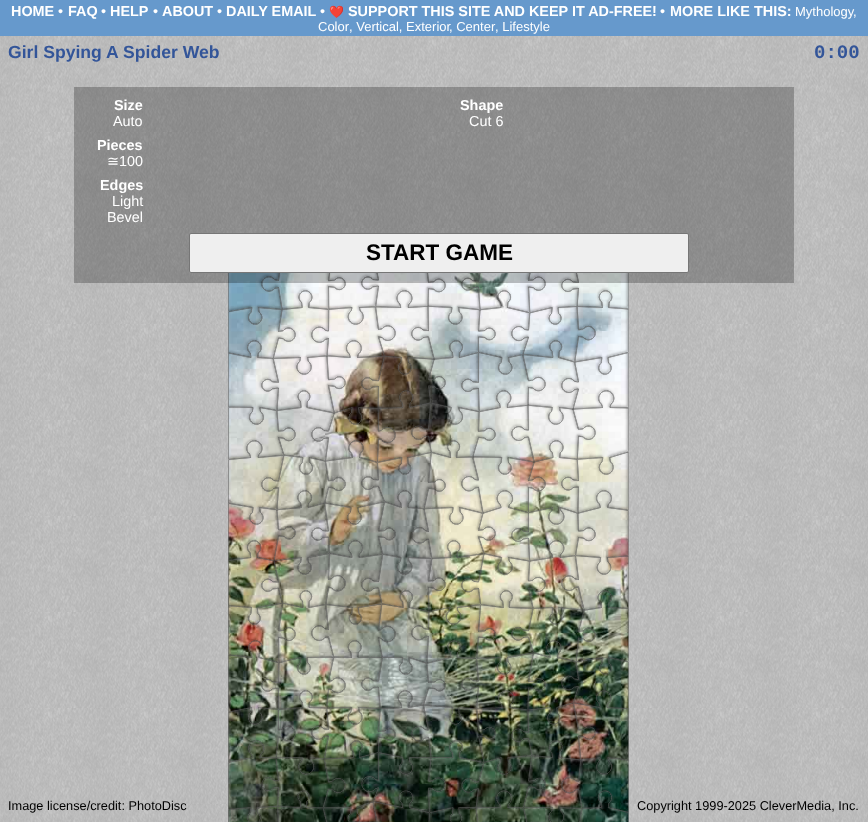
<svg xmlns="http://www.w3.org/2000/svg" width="868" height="822">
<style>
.a{font:bold 14.4px Liberation Sans;fill:#fff}
.b{font:14.4px Liberation Sans;fill:#fff}
.c{font:12px Noto Color Emoji;fill:#fff}
.d{font:13px Liberation Sans;fill:#fff}
.e{font:bold 17.6px Liberation Sans;fill:#359}
.f{font:bold 19px Liberation Mono;fill:#359}
.g{font:14.4px DejaVu Sans;fill:#fff}
.h{font:bold 22.5px Liberation Sans;fill:#000}
.i{font:12.75px Liberation Sans;fill:#000}
</style>
<rect width="100%" height="100%" fill="#69c"/>
<image href="1.png" x="0" y="36" width="868" height="786"/>
<image href="2.png" x="228" y="273" width="54" height="52"/>
<image href="3.png" x="261" y="273" width="84" height="37"/>
<image href="4.png" x="328" y="273" width="51" height="52"/>
<image href="5.png" x="362" y="273" width="84" height="35"/>
<image href="6.png" x="427" y="273" width="53" height="52"/>
<image href="7.png" x="461" y="273" width="85" height="40"/>
<image href="8.png" x="528" y="273" width="51" height="52"/>
<image href="9.png" x="562" y="273" width="67" height="36"/>
<image href="10.png" x="228" y="307" width="68" height="52"/>
<image href="11.png" x="273" y="290" width="56" height="85"/>
<image href="12.png" x="312" y="306" width="84" height="52"/>
<image href="13.png" x="375" y="291" width="59" height="84"/>
<image href="14.png" x="412" y="306" width="84" height="53"/>
<image href="15.png" x="478" y="291" width="52" height="84"/>
<image href="16.png" x="512" y="306" width="84" height="56"/>
<image href="17.png" x="575" y="291" width="54" height="84"/>
<image href="18.png" x="228" y="340" width="51" height="85"/>
<image href="19.png" x="262" y="355" width="84" height="58"/>
<image href="20.png" x="327" y="341" width="58" height="84"/>
<image href="21.png" x="361" y="356" width="85" height="53"/>
<image href="22.png" x="428" y="340" width="52" height="85"/>
<image href="23.png" x="462" y="352" width="84" height="60"/>
<image href="24.png" x="522" y="340" width="57" height="85"/>
<image href="25.png" x="562" y="352" width="67" height="57"/>
<image href="26.png" x="228" y="407" width="68" height="53"/>
<image href="27.png" x="277" y="390" width="58" height="85"/>
<image href="28.png" x="312" y="407" width="84" height="56"/>
<image href="29.png" x="377" y="390" width="55" height="85"/>
<image href="30.png" x="411" y="403" width="85" height="55"/>
<image href="31.png" x="473" y="391" width="62" height="84"/>
<image href="32.png" x="512" y="405" width="83" height="57"/>
<image href="33.png" x="573" y="391" width="56" height="84"/>
<image href="34.png" x="228" y="441" width="56" height="84"/>
<image href="35.png" x="261" y="455" width="85" height="55"/>
<image href="36.png" x="324" y="440" width="61" height="85"/>
<image href="37.png" x="361" y="452" width="85" height="57"/>
<image href="38.png" x="424" y="440" width="59" height="85"/>
<image href="39.png" x="461" y="457" width="85" height="56"/>
<image href="40.png" x="528" y="441" width="51" height="84"/>
<image href="41.png" x="562" y="452" width="67" height="61"/>
<image href="42.png" x="228" y="503" width="68" height="58"/>
<image href="43.png" x="274" y="491" width="56" height="84"/>
<image href="44.png" x="312" y="502" width="84" height="56"/>
<image href="45.png" x="378" y="490" width="54" height="85"/>
<image href="46.png" x="411" y="507" width="85" height="52"/>
<image href="47.png" x="478" y="491" width="52" height="84"/>
<image href="48.png" x="512" y="507" width="84" height="54"/>
<image href="49.png" x="575" y="491" width="54" height="84"/>
<image href="50.png" x="228" y="540" width="55" height="85"/>
<image href="51.png" x="262" y="553" width="84" height="55"/>
<image href="52.png" x="325" y="540" width="58" height="85"/>
<image href="53.png" x="361" y="554" width="85" height="58"/>
<image href="54.png" x="428" y="540" width="56" height="85"/>
<image href="55.png" x="461" y="554" width="85" height="55"/>
<image href="56.png" x="528" y="540" width="56" height="85"/>
<image href="57.png" x="561" y="555" width="68" height="56"/>
<image href="58.png" x="228" y="603" width="68" height="60"/>
<image href="59.png" x="278" y="591" width="56" height="84"/>
<image href="60.png" x="311" y="603" width="85" height="55"/>
<image href="61.png" x="378" y="590" width="51" height="85"/>
<image href="62.png" x="411" y="604" width="85" height="60"/>
<image href="63.png" x="476" y="590" width="58" height="85"/>
<image href="64.png" x="511" y="607" width="85" height="55"/>
<image href="65.png" x="576" y="590" width="53" height="85"/>
<image href="66.png" x="228" y="640" width="51" height="85"/>
<image href="67.png" x="261" y="657" width="85" height="53"/>
<image href="68.png" x="326" y="640" width="57" height="85"/>
<image href="69.png" x="361" y="657" width="85" height="52"/>
<image href="70.png" x="423" y="640" width="56" height="85"/>
<image href="71.png" x="461" y="652" width="85" height="58"/>
<image href="72.png" x="527" y="640" width="52" height="85"/>
<image href="73.png" x="561" y="657" width="68" height="52"/>
<image href="74.png" x="228" y="707" width="68" height="56"/>
<image href="75.png" x="275" y="691" width="54" height="84"/>
<image href="76.png" x="311" y="707" width="85" height="52"/>
<image href="77.png" x="378" y="691" width="53" height="84"/>
<image href="78.png" x="411" y="705" width="85" height="58"/>
<image href="79.png" x="476" y="690" width="56" height="85"/>
<image href="80.png" x="511" y="702" width="85" height="58"/>
<image href="81.png" x="573" y="690" width="56" height="85"/>
<image href="82.png" x="228" y="740" width="51" height="82"/>
<image href="83.png" x="261" y="757" width="85" height="51"/>
<image href="84.png" x="323" y="740" width="56" height="82"/>
<image href="85.png" x="361" y="752" width="85" height="61"/>
<image href="86.png" x="428" y="740" width="56" height="82"/>
<image href="87.png" x="461" y="755" width="85" height="53"/>
<image href="88.png" x="523" y="740" width="59" height="82"/>
<image href="89.png" x="561" y="757" width="68" height="56"/>
<image href="90.png" x="228" y="806" width="51" height="16"/>
<image href="91.png" x="277" y="790" width="50" height="32"/>
<image href="92.png" x="323" y="801" width="54" height="21"/>
<image href="93.png" x="373" y="790" width="57" height="32"/>
<image href="94.png" x="429" y="807" width="49" height="15"/>
<image href="95.png" x="476" y="790" width="51" height="32"/>
<image href="96.png" x="523" y="807" width="59" height="15"/>
<image href="97.png" x="579" y="790" width="50" height="32"/>
<path fill="#00000040" d="M74 87h720v196H74z"/>
<rect fill="#efefef" stroke="#767676" x="189.5" y="233.5" width="499" height="39" rx="1.5"/>
<text class="a" x="11" y="16">HOME</text>
<text class="b" x="58" y="16">•</text>
<text class="a" x="68" y="16">FAQ</text>
<text class="b" x="101" y="16">•</text>
<text class="a" x="110" y="16">HELP</text>
<text class="b" x="153" y="16">•</text>
<text class="a" x="162" y="16">ABOUT</text>
<text class="b" x="217" y="16">•</text>
<text class="a" x="226" y="16">DAILY EMAIL</text>
<text class="b" x="320" y="16">•</text>
<text class="c" x="329" y="16">❤️</text>
<text class="a" x="348" y="16">SUPPORT THIS SITE AND KEEP IT AD-FREE!</text>
<text class="b" x="660" y="16">•</text>
<text class="a" x="670" y="16">MORE LIKE THIS:</text>
<text class="d" x="795" y="16">Mythology</text>
<text class="d" x="853" y="16">,</text>
<text class="d" x="318" y="31">Color</text>
<text class="d" x="349" y="31">, Vertical, Exterior</text>
<text class="d" x="449" y="31">, Center</text>
<text class="d" x="495" y="31">, Lifestyle</text>
<text class="e" x="8" y="58">Girl Spying A Spider Web</text>
<text class="f" x="814" y="58">0:00</text>
<text class="a" x="114" y="110">Size</text>
<text class="b" x="113" y="126">Auto</text>
<text class="a" x="97" y="150">Pieces</text>
<text class="g" x="107" y="166">≅</text>
<text class="b" x="119" y="166">100</text>
<text class="a" x="100" y="190">Edges</text>
<text class="b" x="112" y="206">Light</text>
<text class="b" x="107" y="222">Bevel</text>
<text class="a" x="460" y="110">Shape</text>
<text class="b" x="469" y="126">Cut 6</text>
<text class="h" x="366" y="260">START GAME</text>
<text class="i" x="8" y="810">Image license/credit: PhotoDisc</text>
<text class="i" x="637" y="810">Copyright 1999-2025 CleverMedia, Inc.</text>
</svg>
